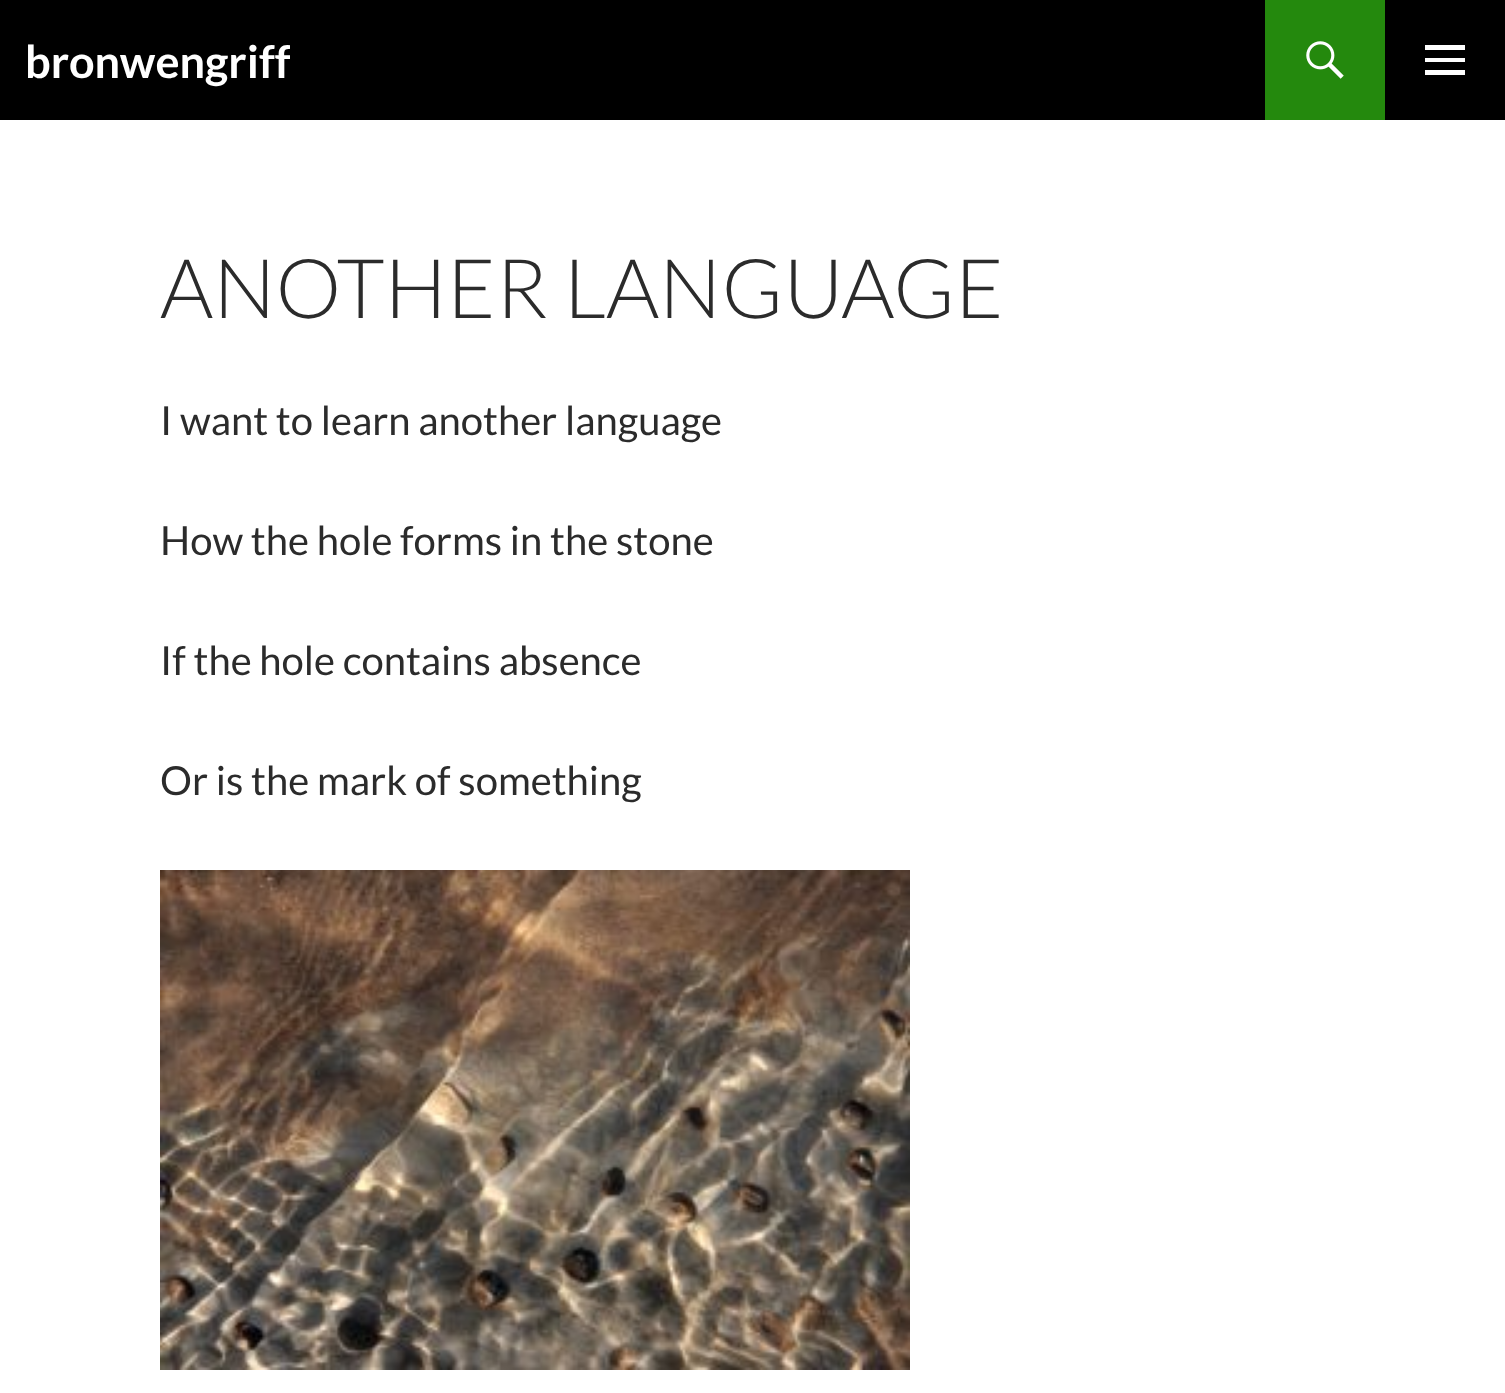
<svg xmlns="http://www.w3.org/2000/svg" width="1505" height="1393">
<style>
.a{font:bold 45px Lato;fill:#fff}
.b{font:300 82.5px Lato;fill:#2b2b2b}
.c{font:40px Lato;fill:#2b2b2b}
</style>
<defs>
<clipPath id="clip1"><path d="M25 0h265v120H25z"/></clipPath>
</defs>
<rect width="100%" height="100%" fill="#fff"/>
<path fill="#000" d="M0 0h1505v120H0z"/>
<path fill="#24890d" d="M1265 0h120v120H1265z"/>
<image href="1.png" x="1306" y="41" width="38" height="38"/>
<path fill="#fff" d="M1425 75v-5h40v5zm0-13v-4h40v4zm0-12v-5h40v5z"/>
<image href="2.png" x="160" y="870" width="750" height="500"/>
<g clip-path="url(#clip1)">
<text class="a" x="25" y="78">bronwengriff</text>
</g>
<text class="b" x="160" y="318">ANOTHER LANGUAGE</text>
<text class="c" x="160" y="435">I want to learn another language</text>
<text class="c" x="160" y="555">How the hole forms in the stone</text>
<text class="c" x="160" y="675">If the hole contains absence</text>
<text class="c" x="160" y="795">Or is the mark of something</text>
</svg>
